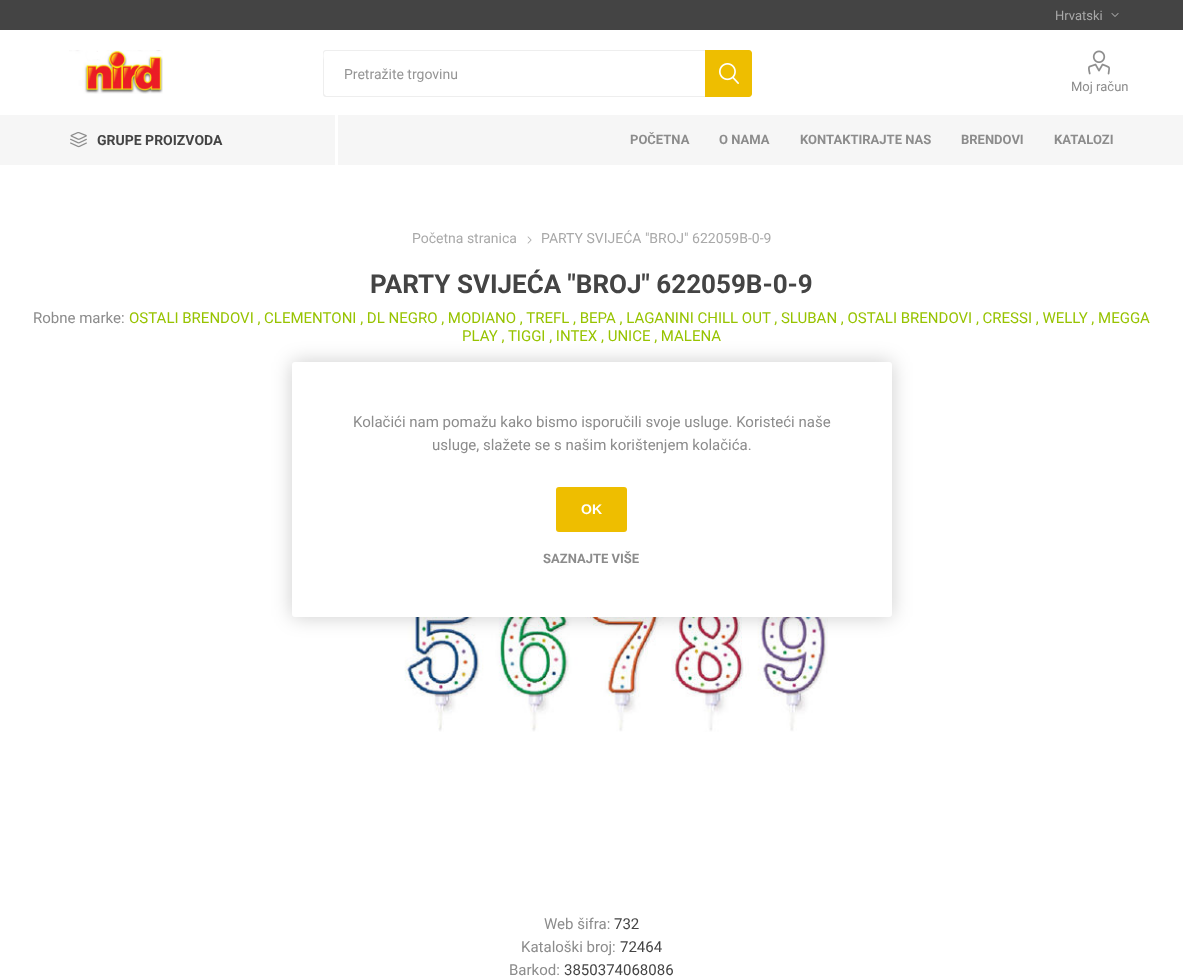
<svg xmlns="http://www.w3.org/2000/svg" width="1183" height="977">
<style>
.a{font:13px Roboto;fill:#a9a9a9}
.b{font:14px Roboto;fill:#959595}
.c{font:13px Roboto;fill:#8c8c8c}
.d{font:bold 14px Roboto;fill:#444}
.e{font:bold 13px Roboto;fill:#8c8c8c}
.f{font:14px Roboto;fill:#a9a9a9}
.g{font:bold 26px Roboto;fill:#444}
.h{font:15px Roboto;fill:#8c8c8c}
.i{font:15px Roboto;fill:#97c300}
.j{font:15px Roboto;fill:#444}
.k{font:bold 14px Liberation Sans;fill:#fff}
</style>
<rect width="100%" height="100%" fill="#fff"/>
<path fill="#444" d="M0 0h1183v30H0z"/>
<image href="1.png" x="1111" y="13" width="8" height="4"/>
<image href="2.png" x="69" y="50" width="94" height="44"/>
<path fill="#eee" fill-rule="evenodd" d="M326 50h379v47h-379c-2 0-3-1-3-3v-41c0-2 1-3 3-3zm0 1h379v45h-379l-2-2v-34c0 0-2-9 2-9z"/>
<path fill="#eebe00" d="M705 50h44c1.5 0 3 1.5 3 3v41c0 1.5-1.5 3-3 3h-44z"/>
<image href="3.png" x="719" y="63" width="20" height="21"/>
<image href="4.png" x="1088" y="50" width="22" height="25"/>
<path fill="#f6f6f6" d="M0 115h1183v50H0z"/>
<path fill="#fff" d="M335 115h3v50H335z"/>
<image href="5.png" x="70" y="132" width="17" height="16"/>
<image href="6.png" x="527" y="236" width="5" height="8"/>
<image href="7.png" x="358" y="617" width="470" height="115"/>
<rect fill="#00000033" filter="blur(10px)" x="292" y="362" width="600" height="255" rx="3"/>
<rect fill="#fff" x="292" y="362" width="600" height="255" rx="3"/>
<rect fill="#eebe00" x="556" y="487" width="71" height="45" rx="3"/>
<text class="a" x="1055" y="20">Hrvatski</text>
<text class="b" x="344" y="79">Pretražite trgovinu</text>
<text class="c" x="1071" y="91">Moj račun</text>
<text class="d" x="97" y="145">GRUPE PROIZVODA</text>
<text class="e" x="630" y="144">POČETNA</text>
<text class="e" x="719" y="144">O NAMA</text>
<text class="e" x="800" y="144">KONTAKTIRAJTE NAS</text>
<text class="e" x="961" y="144">BRENDOVI</text>
<text class="e" x="1054" y="144">KATALOZI</text>
<text class="f" x="412" y="243">Početna stranica</text>
<text class="f" x="541" y="243">PARTY SVIJEĆA "BROJ" 622059B-0-9</text>
<text class="g" x="370" y="293">PARTY SVIJEĆA "BROJ" 622059B-0-9</text>
<text class="h" x="33" y="323">Robne marke:</text>
<text class="i" x="129" y="323">OSTALI BRENDOVI , CLEMENTONI , DL NEGRO , MODIANO , TREFL , BEPA , LAGANINI CHILL OUT , SLUBAN , OSTALI BRENDOVI , CRESSI , WELLY , MEGGA</text>
<text class="i" x="462" y="341">PLAY , TIGGI , INTEX , UNICE , MALENA</text>
<text class="h" x="544" y="929">Web šifra:</text>
<text class="j" x="614" y="929">732</text>
<text class="h" x="521" y="952">Kataloški broj:</text>
<text class="j" x="620" y="952">72464</text>
<text class="h" x="509" y="975">Barkod:</text>
<text class="j" x="564" y="975">3850374068086</text>
<text class="h" x="353" y="427">Kolačići nam pomažu kako bismo isporučili svoje usluge. Koristeći naše</text>
<text class="h" x="432" y="450">usluge, slažete se s našim korištenjem kolačića.</text>
<text class="k" x="581" y="514">OK</text>
<text class="e" x="543" y="563">SAZNAJTE VIŠE</text>
</svg>
